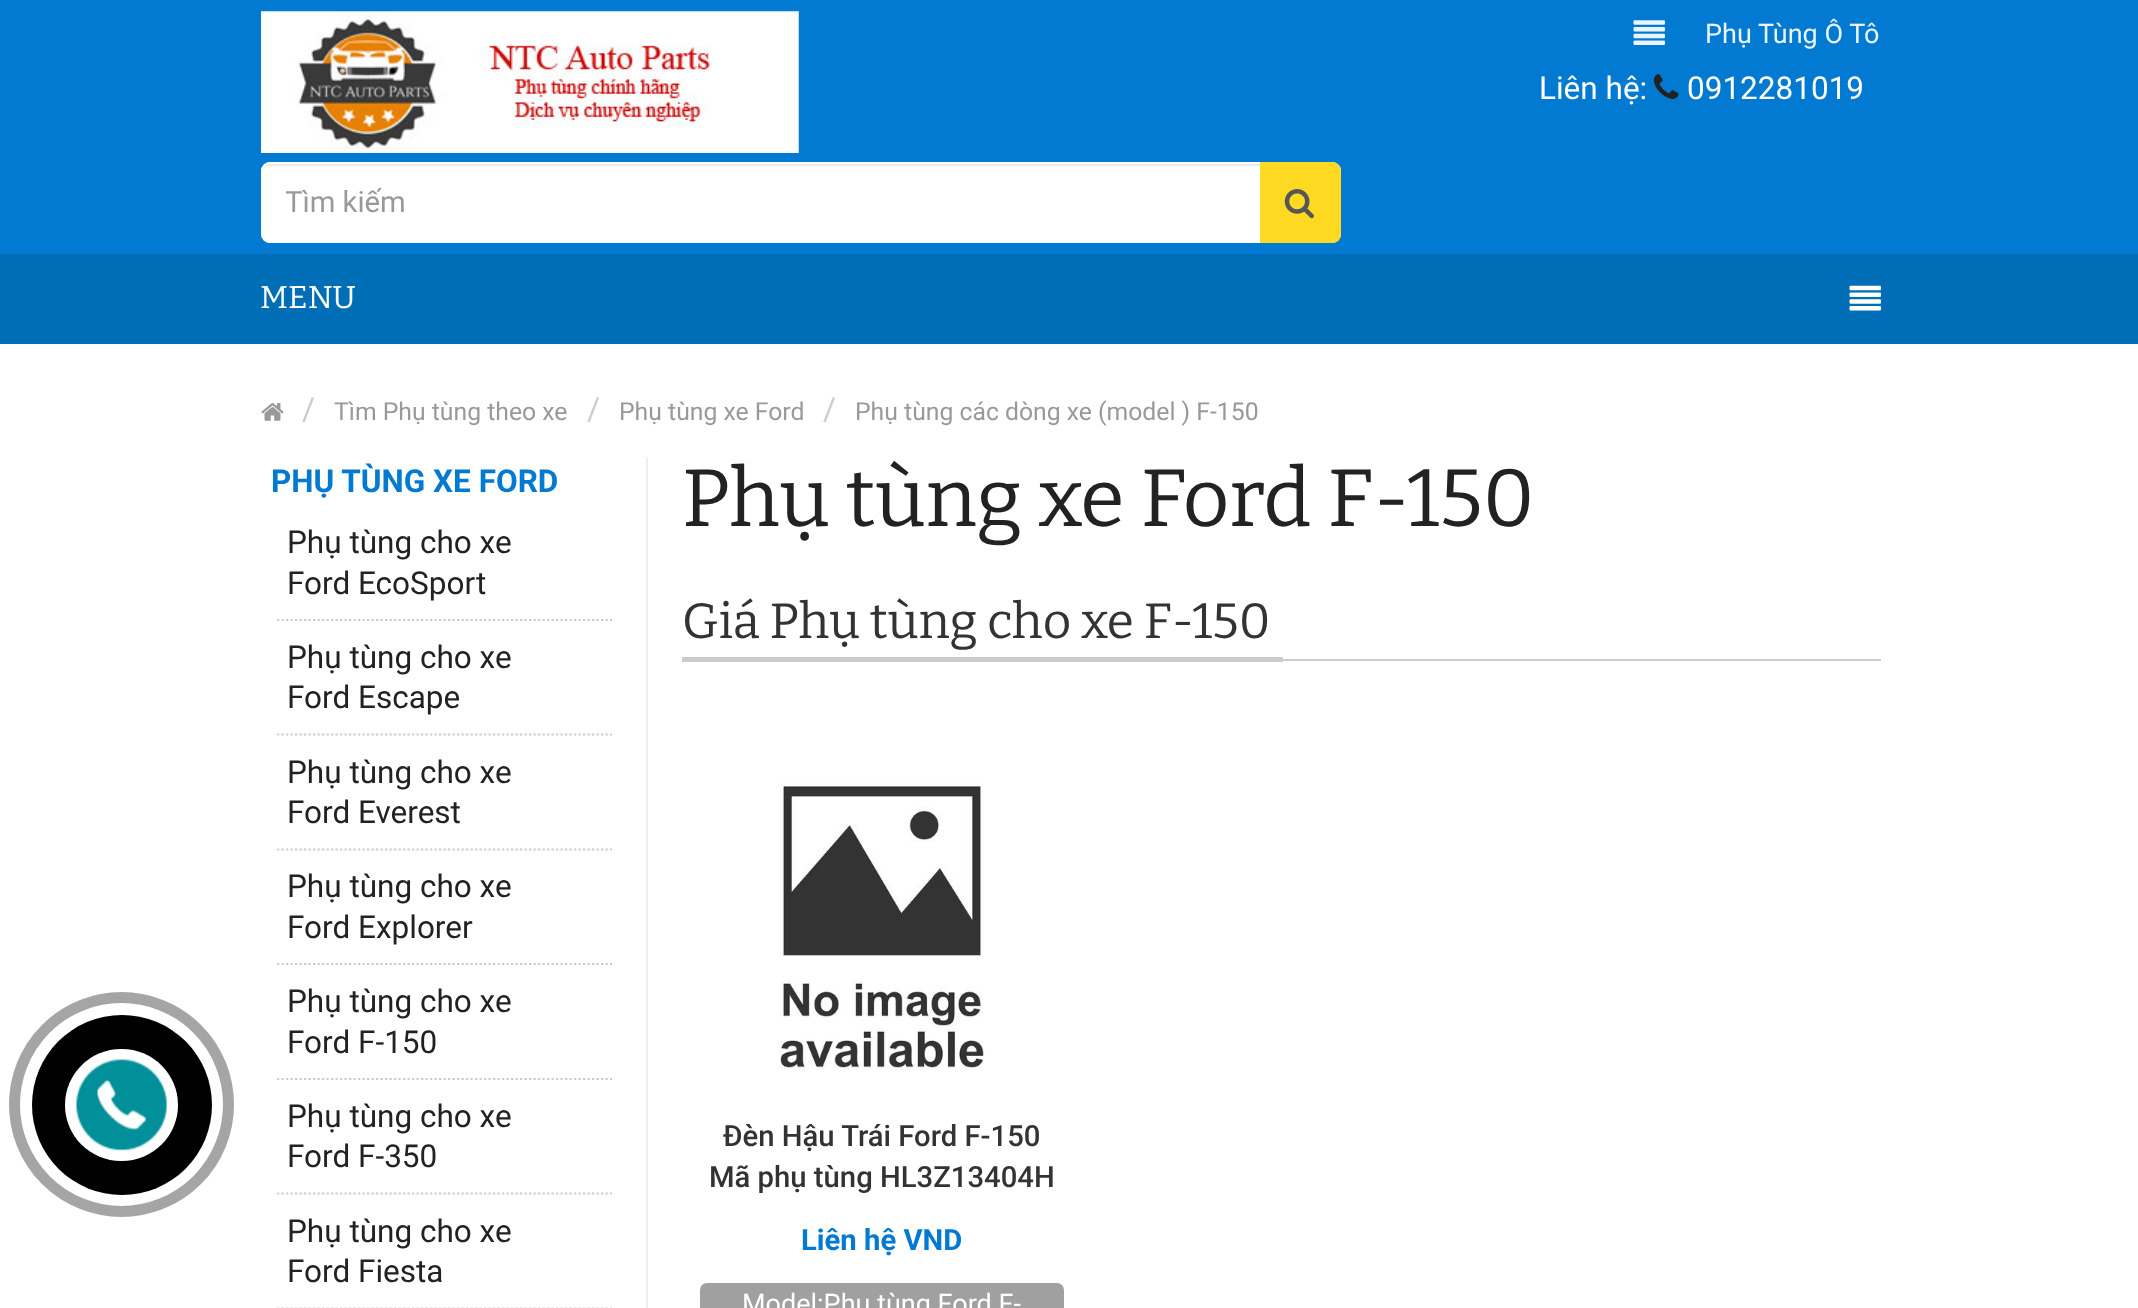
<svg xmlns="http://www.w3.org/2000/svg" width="2138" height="1308">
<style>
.a{font:27px Roboto;fill:#ebf4fb}
.b{font:31.5px Roboto;fill:#fff}
.c{font:29.25px Roboto;fill:#999}
.d{font:100 31.5px Bitter;fill:#fff}
.e{font:31.5px Roboto;fill:#ccc}
.f{font:24.75px Roboto;fill:#999}
.g{font:bold 31.5px Roboto;fill:#037ad1}
.h{font:31.5px Roboto;fill:#222}
.i{font:100 81px Bitter;fill:#222}
.j{font:100 49.5px Bitter;fill:#333}
.k{font:500 29.25px Roboto;fill:#333}
.l{font:bold 29.25px Roboto;fill:#037ad1}
.m{font:27px Roboto;fill:#fff}
</style>
<defs>
<clipPath id="clip1"><path d="M286 185h972v33H286z"/></clipPath>
</defs>
<rect width="100%" height="100%" fill="#fff"/>
<circle fill="none" stroke="#a5a5a5" stroke-width="11" cx="121.5" cy="1104.5" r="107"/>
<circle fill="#000" cx="122" cy="1105" r="90"/>
<rect fill="#fff" x="65" y="1049" width="113" height="112" rx="56"/>
<image href="1.png" x="76" y="1059" width="91" height="92"/>
<path fill="#037ad1" d="M0 0h2138v254H0z"/>
<image href="2.png" x="261" y="11" width="538" height="142"/>
<image href="3.png" x="1633" y="20" width="32" height="25"/>
<image href="4.png" x="1653" y="74" width="26" height="25"/>
<rect fill="#fff" x="261" y="162" width="1080" height="81" rx="9"/>
<path fill="#ececec" d="M270 166h1062c4 0 7 4 7 7c0-4-2-9-7-9h-1062c-5 0-7 5-7 9c0-3 3-7 7-7z"/>
<rect fill="none" stroke="#fff" stroke-width="2" x="262" y="163" width="1078" height="79" rx="8"/>
<path fill="#fdd922" d="M1260 162h72c5 0 9 4 9 9v63c0 5-4 9-9 9h-72z"/>
<image href="5.png" x="1284" y="189" width="30" height="30"/>
<path fill="#006eb7" d="M0 254h2138v90H0z"/>
<image href="6.png" x="1849" y="285" width="32" height="26"/>
<image href="7.png" x="261" y="403" width="23" height="18"/>
<path fill="#eee" d="M646 457h2v851H646z"/>
<path fill="none" stroke="#ccc" stroke-width="2.2" stroke-dasharray="2.25 2.25" d="M277 620h335"/>
<path fill="none" stroke="#ccc" stroke-width="2.2" stroke-dasharray="2.25 2.25" d="M277 734.5h335"/>
<path fill="none" stroke="#ccc" stroke-width="2.2" stroke-dasharray="2.25 2.25" d="M277 849.5h335"/>
<path fill="none" stroke="#ccc" stroke-width="2.2" stroke-dasharray="2.25 2.25" d="M277 964h335"/>
<path fill="none" stroke="#ccc" stroke-width="2.2" stroke-dasharray="2.25 2.25" d="M277 1079h335"/>
<path fill="none" stroke="#ccc" stroke-width="2.2" stroke-dasharray="2.25 2.25" d="M277 1193.5h335"/>
<path fill="none" stroke="#ccc" stroke-width="2.2" stroke-dasharray="2.25 2.25" d="M277 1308.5h335"/>
<path fill="#ccc" d="M1283 659h598v2H1283z"/>
<path fill="#ccc" d="M682 657h601v5H682z"/>
<image href="8.png" x="779" y="783" width="206" height="287"/>
<rect fill="#a0a0a0" x="700" y="1283" width="364" height="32" rx="7"/>
<text class="a" x="1705" y="43">Phụ Tùng Ô Tô</text>
<text class="b" x="1539" y="99">Liên hệ:</text>
<text class="b" x="1687" y="99">0912281019</text>
<g clip-path="url(#clip1)">
<text class="c" x="285" y="212">Tìm kiếm</text>
</g>
<text class="d" x="260" y="308">MENU</text>
<text class="e" x="302" y="420">/</text>
<text class="f" x="334" y="420">Tìm Phụ tùng theo xe</text>
<text class="e" x="587" y="420">/</text>
<text class="f" x="619" y="420">Phụ tùng xe Ford</text>
<text class="e" x="823" y="420">/</text>
<text class="f" x="855" y="420">Phụ tùng các dòng xe (model ) F-150</text>
<text class="g" x="271" y="492">PHỤ TÙNG XE FORD</text>
<text class="h" x="287" y="553">Phụ tùng cho xe</text>
<text class="h" x="287" y="594">Ford EcoSport</text>
<text class="h" x="287" y="668">Phụ tùng cho xe</text>
<text class="h" x="287" y="708">Ford Escape</text>
<text class="h" x="287" y="783">Phụ tùng cho xe</text>
<text class="h" x="287" y="823">Ford Everest</text>
<text class="h" x="287" y="897">Phụ tùng cho xe</text>
<text class="h" x="287" y="938">Ford Explorer</text>
<text class="h" x="287" y="1012">Phụ tùng cho xe</text>
<text class="h" x="287" y="1053">Ford F-150</text>
<text class="h" x="287" y="1127">Phụ tùng cho xe</text>
<text class="h" x="287" y="1167">Ford F-350</text>
<text class="h" x="287" y="1242">Phụ tùng cho xe</text>
<text class="h" x="287" y="1282">Ford Fiesta</text>
<text class="i" x="682" y="526">Phụ tùng xe Ford F-150</text>
<text class="j" x="682" y="638">Giá Phụ tùng cho xe F-150</text>
<text class="k" x="723" y="1146">Đèn Hậu Trái Ford F-150</text>
<text class="k" x="709" y="1187">Mã phụ tùng HL3Z13404H</text>
<text class="l" x="801" y="1250">Liên hệ VND</text>
<text class="m" x="742" y="1313">Model:Phụ tùng Ford F-</text>
</svg>
